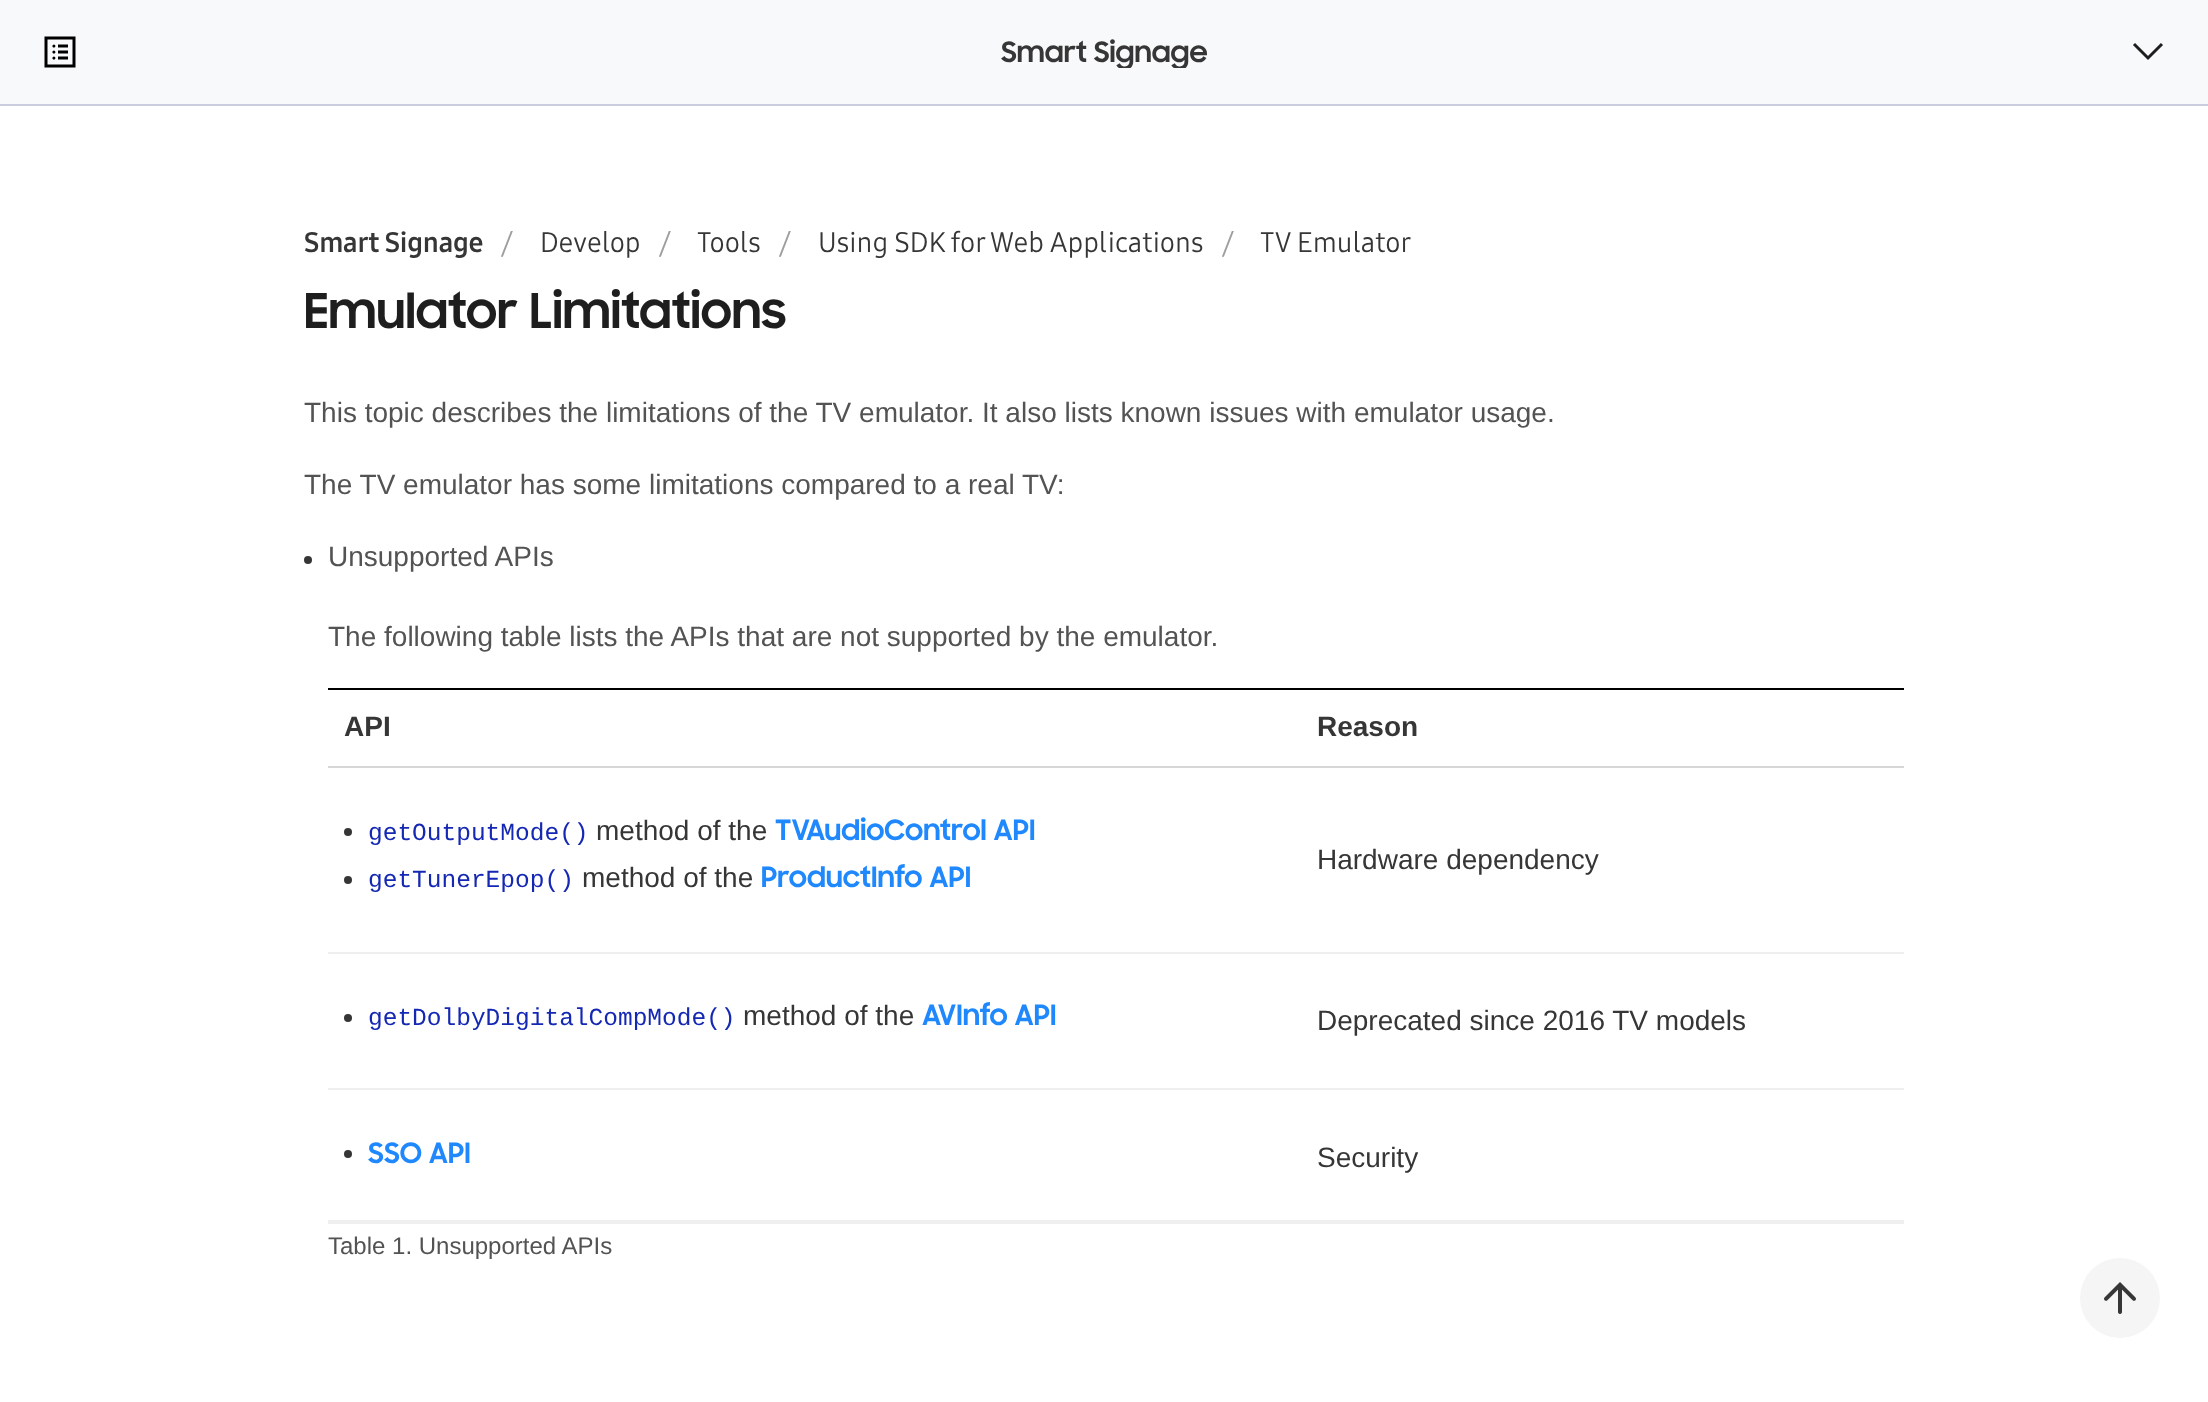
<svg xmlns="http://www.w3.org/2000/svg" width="2208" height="1402">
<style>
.a{font:bold 28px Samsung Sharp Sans;fill:#363636}
.b{font:bold 28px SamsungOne;letter-spacing:-0.25px;fill:#363636}
.c{font:32px SamsungOne;fill:#9e9e9e}
.d{font:28px SamsungOne;fill:#363636}
.e{font:bold 48px Samsung Sharp Sans;fill:#1e1e1e}
.f{font:28px Liberation Sans;fill:#535353}
.g{font:bold 28px Liberation Sans;fill:#363636}
.h{font:24.5px Liberation Mono;fill:#1528b3}
.i{font:28px Liberation Sans;fill:#363636}
.j{font:bold 28px Samsung Sharp Sans;fill:#2088fd}
.k{font:24px Liberation Sans;fill:#535353}
</style>
<defs>
<clipPath id="clip1"><path d="M1000 36h208v32H1000z"/></clipPath>
</defs>
<rect width="100%" height="100%" fill="#fff"/>
<path fill="#c9cddd" d="M0 104h2208v2H0z"/>
<path fill="#f8f9fa" d="M0 0h2208v104H0z"/>
<image href="1.png" x="44" y="36" width="32" height="32"/>
<path fill="none" stroke="#1e1e1e" stroke-width="3" d="M2134 44l14 14l14-14"/>
<circle fill="#363636" cx="308" cy="560" r="4"/>
<path fill="#000" d="M328 688h1576v2H328z"/>
<path fill="#efefef" d="M328 1220h1576v4H328z"/>
<path fill="#d6d6d6" d="M328 766h1576v2H328z"/>
<circle fill="#363636" cx="348" cy="832" r="4"/>
<circle fill="#363636" cx="348" cy="880" r="4"/>
<path fill="#efefef" d="M328 952h1576v2H328z"/>
<circle fill="#363636" cx="348" cy="1018" r="4"/>
<path fill="#efefef" d="M328 1088h1576v2H328z"/>
<circle fill="#363636" cx="348" cy="1154" r="4"/>
<circle fill="#f5f5f5" cx="2120" cy="1298" r="40"/>
<image href="2.png" x="2104" y="1282" width="32" height="32"/>
<g clip-path="url(#clip1)">
<text class="a" x="1001" y="62">Smart Signage</text>
</g>
<text class="b" x="304" y="252">Smart Signage</text>
<text class="c" x="500" y="254">/</text>
<text class="d" x="540" y="252">Develop</text>
<text class="c" x="658" y="254">/</text>
<text class="d" x="697" y="252">Tools</text>
<text class="c" x="778" y="254">/</text>
<text class="d" x="818" y="252">Using SDK for Web Applications</text>
<text class="c" x="1221" y="254">/</text>
<text class="d" x="1260" y="252">TV Emulator</text>
<text class="e" x="304" y="328">Emulator Limitations</text>
<text class="f" x="304" y="422">This topic describes the limitations of the TV emulator. It also lists known issues with emulator usage.</text>
<text class="f" x="304" y="494">The TV emulator has some limitations compared to a real TV:</text>
<text class="f" x="328" y="566">Unsupported APIs</text>
<text class="f" x="328" y="646">The following table lists the APIs that are not supported by the emulator.</text>
<text class="g" x="344" y="736">API</text>
<text class="g" x="1317" y="736">Reason</text>
<text class="h" x="368" y="840">getOutputMode()</text>
<text class="i" x="596" y="840">method of the</text>
<text class="j" x="775" y="840">TVAudioControl API</text>
<text class="h" x="368" y="887">getTunerEpop()</text>
<text class="i" x="582" y="887">method of the</text>
<text class="j" x="761" y="887">ProductInfo API</text>
<text class="i" x="1317" y="869">Hardware dependency</text>
<text class="h" x="368" y="1025">getDolbyDigitalCompMode()</text>
<text class="i" x="743" y="1025">method of the</text>
<text class="j" x="922" y="1025">AVInfo API</text>
<text class="i" x="1317" y="1030">Deprecated since 2016 TV models</text>
<text class="j" x="368" y="1163">SSO API</text>
<text class="i" x="1317" y="1167">Security</text>
<text class="k" x="328" y="1254">Table 1. Unsupported APIs</text>
</svg>
